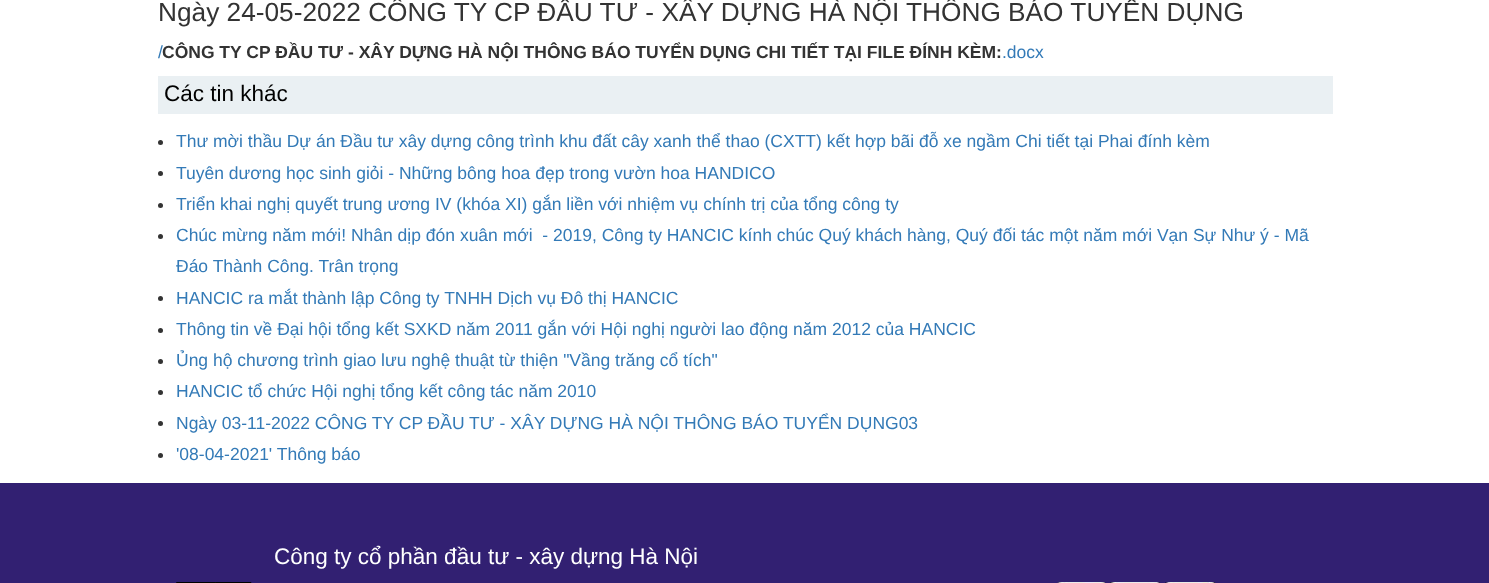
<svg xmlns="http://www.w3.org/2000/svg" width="1489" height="583">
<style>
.a{font:26.25px Liberation Sans;fill:#333}
.b{font:17.5px Liberation Sans;fill:#337ab7}
.c{font:bold 17.5px Liberation Sans;fill:#333}
.d{font:22.5px Liberation Sans;fill:#000}
.e{font:22.5px Liberation Sans;fill:#fff}
</style>
<rect width="100%" height="100%" fill="#fff"/>
<path fill="#eaf0f3" d="M158 76h1175v38H158z"/>
<circle fill="#333" cx="160.5" cy="142.5" r="2.5"/>
<circle fill="#333" cx="160.5" cy="173.5" r="2.5"/>
<circle fill="#333" cx="160.5" cy="205.5" r="2.5"/>
<circle fill="#333" cx="160.5" cy="236.5" r="2.5"/>
<circle fill="#333" cx="160.5" cy="298.5" r="2.5"/>
<circle fill="#333" cx="160.5" cy="330.5" r="2.5"/>
<circle fill="#333" cx="160.5" cy="361.5" r="2.5"/>
<circle fill="#333" cx="160.5" cy="392.5" r="2.5"/>
<circle fill="#333" cx="160.5" cy="423.5" r="2.5"/>
<circle fill="#333" cx="160.5" cy="455.5" r="2.5"/>
<path fill="#322072" d="M0 483h1489v100H0z"/>
<image href="1.png" x="176" y="582" width="76" height="1"/>
<image href="2.png" x="1057" y="582" width="48" height="1"/>
<image href="3.png" x="1110" y="582" width="50" height="1"/>
<image href="4.png" x="1165" y="582" width="50" height="1"/>
<text class="a" x="158" y="21">Ngày 24-05-2022 CÔNG TY CP ĐẦU TƯ - XÂY DỰNG HÀ NỘI THÔNG BÁO TUYỂN DỤNG</text>
<text class="b" x="158" y="58">/</text>
<text class="c" x="162" y="58">CÔNG TY CP ĐẦU TƯ - XÂY DỰNG HÀ NỘI THÔNG BÁO TUYỂN DỤNG CHI TIẾT TẠI FILE ĐÍNH KÈM:</text>
<text class="b" x="1002" y="58">.docx</text>
<text class="d" x="164" y="101">Các tin khác</text>
<text class="b" x="176" y="147">Thư mời thầu Dự án Đầu tư xây dựng công trình khu đất cây xanh thể thao (CXTT) kết hợp bãi đỗ xe ngầm Chi tiết tại Phai đính kèm</text>
<text class="b" x="176" y="179">Tuyên dương học sinh giỏi - Những bông hoa đẹp trong vườn hoa HANDICO</text>
<text class="b" x="176" y="210">Triển khai nghị quyết trung ương IV (khóa XI) gắn liền với nhiệm vụ chính trị của tổng công ty</text>
<text class="b" xml:space="preserve" x="176" y="241">Chúc mừng năm mới! Nhân dịp đón xuân mới  - 2019, Công ty HANCIC kính chúc Quý khách hàng, Quý đối tác một năm mới Vạn Sự Như ý - Mã</text>
<text class="b" x="176" y="272">Đáo Thành Công. Trân trọng</text>
<text class="b" x="176" y="304">HANCIC ra mắt thành lập Công ty TNHH Dịch vụ Đô thị HANCIC</text>
<text class="b" x="176" y="335">Thông tin về Đại hội tổng kết SXKD năm 2011 gắn với Hội nghị người lao động năm 2012 của HANCIC</text>
<text class="b" x="176" y="366">Ủng hộ chương trình giao lưu nghệ thuật từ thiện "Vầng trăng cổ tích"</text>
<text class="b" x="176" y="397">HANCIC tổ chức Hội nghị tổng kết công tác năm 2010</text>
<text class="b" x="176" y="429">Ngày 03-11-2022 CÔNG TY CP ĐẦU TƯ - XÂY DỰNG HÀ NỘI THÔNG BÁO TUYỂN DỤNG03</text>
<text class="b" x="176" y="460">'08-04-2021' Thông báo</text>
<text class="e" x="274" y="564">Công ty cổ phần đầu tư - xây dựng Hà Nội</text>
</svg>
